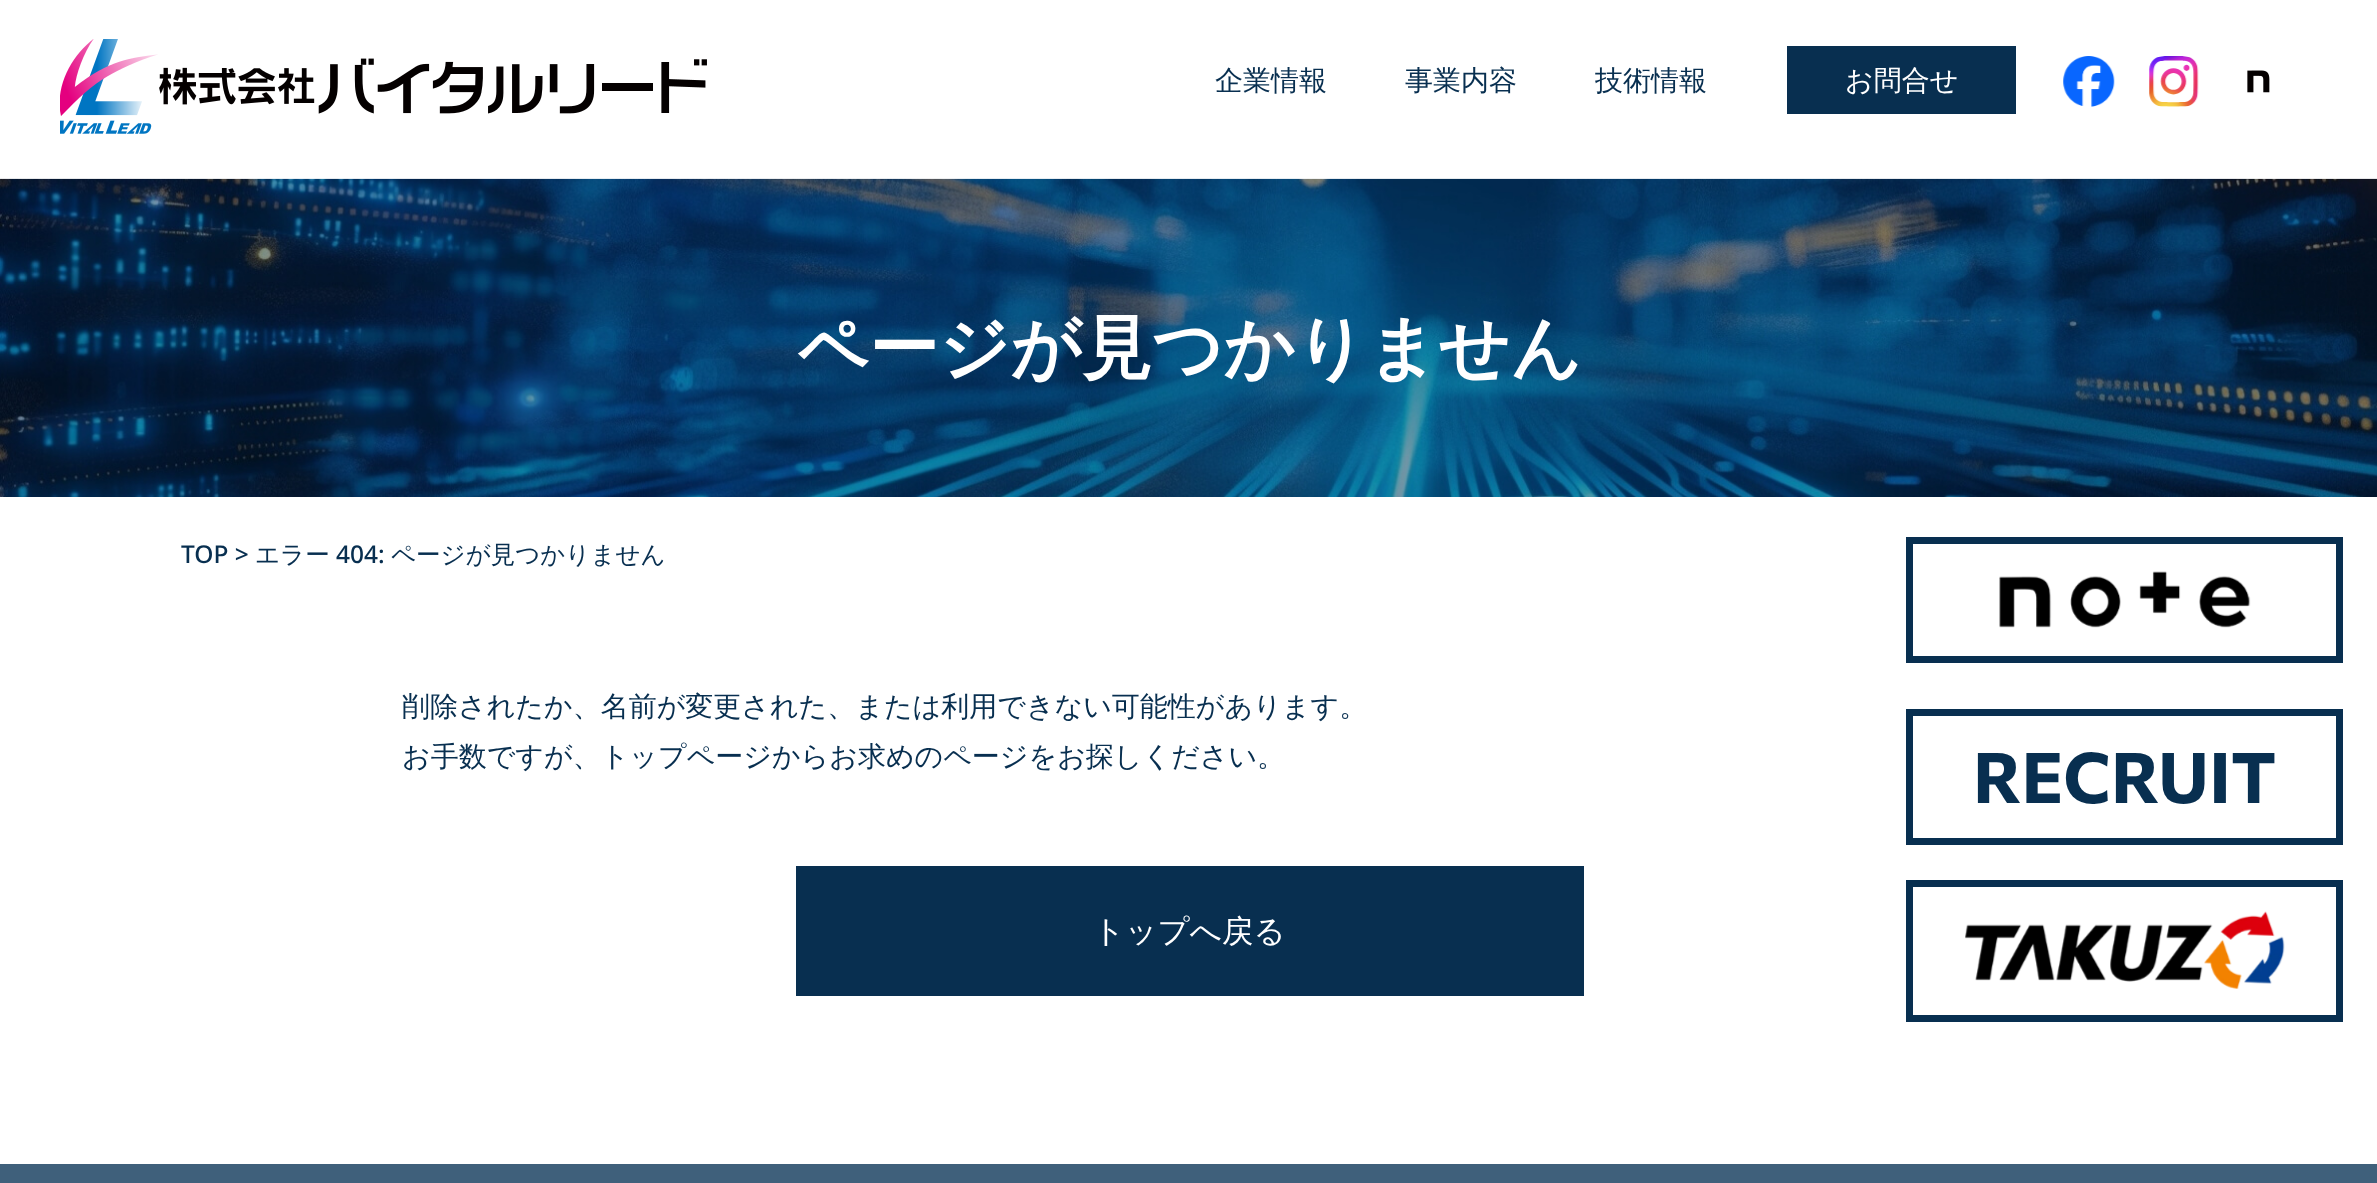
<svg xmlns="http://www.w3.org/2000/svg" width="2377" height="1183">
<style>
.a{font:500 28px WenQuanYi Zen Hei;fill:#082f50}
.b{font:500 28px WenQuanYi Zen Hei;fill:#fff}
.c{font:bold 70px WenQuanYi Zen Hei;fill:#fff}
.d{font:500 24.5px Noto Sans;fill:#082f50}
.e{font:500 24.5px WenQuanYi Zen Hei;fill:#082f50}
.f{font:500 31.5px WenQuanYi Zen Hei;fill:#fff}
.g{font:bold 70px Commissioner;fill:#082f50}
</style>
<rect width="100%" height="100%" fill="#fff"/>
<image href="5.png" x="0" y="178" width="2377" height="319"/>
<path fill="#ffffffcc" d="M0 178h2377v1H0z"/>
<image href="1.png" x="60" y="39" width="647" height="95"/>
<path fill="#082f50" d="M1787 46h229v68H1787z"/>
<image href="2.png" x="2063" y="56" width="52" height="51"/>
<image href="3.png" x="2149" y="56" width="50" height="51"/>
<image href="4.png" x="2247" y="70" width="23" height="23"/>
<path fill="#082f50" d="M796 866h788v130H796z"/>
<path fill="none" stroke="#082f50" stroke-width="7" d="M1909.5 540.5h430v119H1909.5z"/>
<image href="6.png" x="1999" y="571" width="252" height="57"/>
<path fill="none" stroke="#082f50" stroke-width="7" d="M1909.5 712.5h430v129H1909.5z"/>
<path fill="none" stroke="#082f50" stroke-width="7" d="M1909.5 883.5h430v135H1909.5z"/>
<image href="7.png" x="1965" y="911" width="320" height="78"/>
<path fill="#3f607b" d="M0 1164h2377v19H0z"/>
<text class="a" x="1215" y="90">企業情報</text>
<text class="a" x="1405" y="90">事業内容</text>
<text class="a" x="1595" y="90">技術情報</text>
<text class="b" x="1845" y="90">お問合せ</text>
<text class="c" x="797" y="372">ページが見つかりません</text>
<text class="d" x="181" y="563">TOP &gt;</text>
<text class="e" x="255" y="563">エラー</text>
<text class="d" x="336" y="563">404:</text>
<text class="e" x="391" y="563">ページが見つかりません</text>
<text class="a" x="402" y="716">削除されたか、名前が変更された、または利用できない可能性があります。</text>
<text class="a" x="402" y="766">お手数ですが、トップページからお求めのページをお探しください。</text>
<text class="f" x="1093" y="942">トップへ戻る</text>
<text class="g" x="1973" y="803">RECRUIT</text>
</svg>
